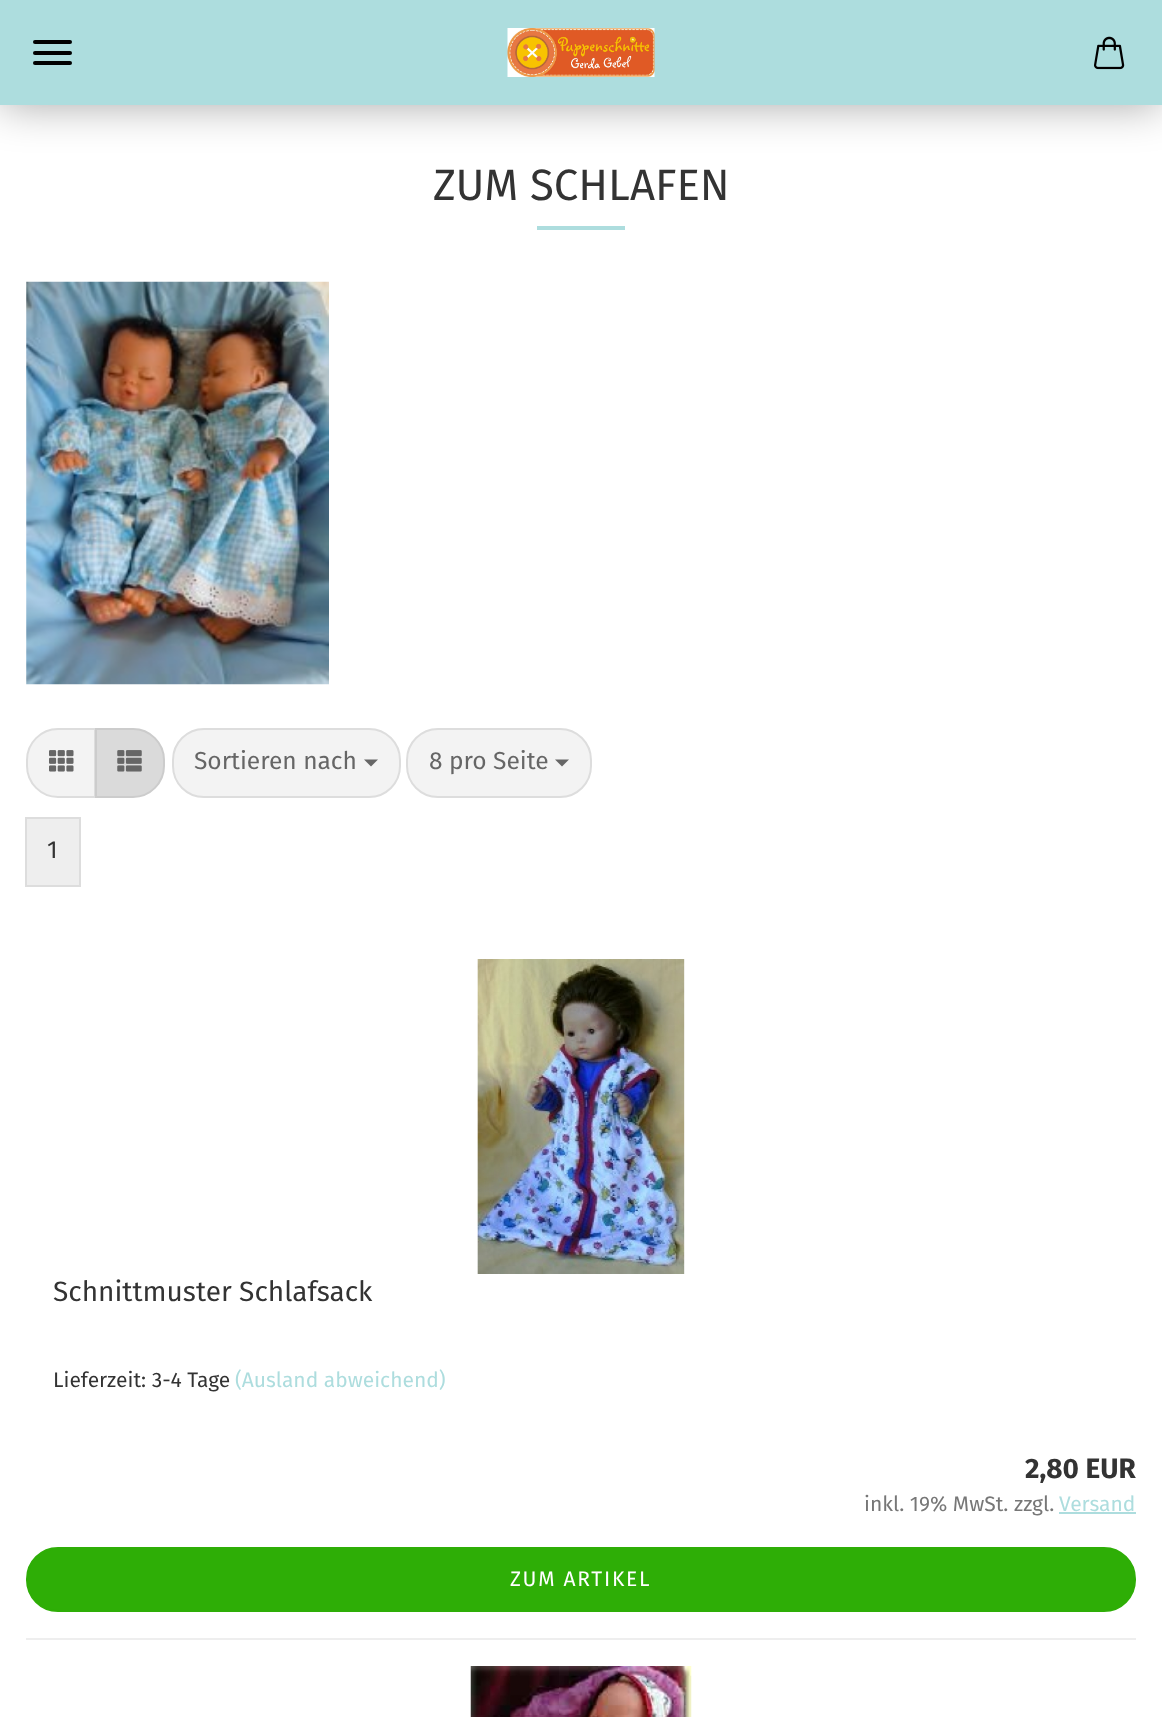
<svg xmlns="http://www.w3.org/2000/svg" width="1162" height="1717">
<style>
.a{font:43.75px Fira Sans;fill:#333}
.b{font:24.5px Fira Sans;fill:#666}
.c{font:24.5px Fira Sans;fill:#333}
.d{font:28px Fira Sans;fill:#333}
.e{font:21px Fira Sans;fill:#333}
.f{font:21px Fira Sans;fill:#adddde}
.g{font:bold 28px Fira Sans;fill:#333}
.h{font:21px Fira Sans;fill:#777}
.i{font:21px Fira Sans;letter-spacing:1.75px;fill:#fff}
</style>
<rect width="100%" height="100%" fill="#fff"/>
<path fill="#00000059" filter="blur(22px)" d="M0 0h1162v105H0z"/>
<path fill="#adddde" d="M0 0h1162v105H0z"/>
<image href="1.png" x="507" y="28" width="148" height="49"/>
<image href="2.png" x="1094" y="36" width="31" height="34"/>
<rect fill="#000" x="33" y="51" width="39" height="4" rx="2"/>
<rect fill="#000" x="33" y="40" width="39" height="4" rx="2"/>
<rect fill="#000" x="33" y="61" width="39" height="4" rx="2"/>
<path fill="#adddde" d="M537 226h88v4H537z"/>
<image href="3.png" x="26" y="281" width="303" height="404"/>
<path fill="#f3f3f3" stroke="#ddd" stroke-width="2" d="M58 729h37v68h-37c-17 0-31-14-31-31v-6c0-17 14-31 31-31z"/>
<image href="4.png" x="49" y="750" width="25" height="22"/>
<path fill="#dadada" stroke="#ccc" stroke-width="2" d="M96 729h37c17 0 31 14 31 31v6c0 17-14 31-31 31h-37z"/>
<image href="5.png" x="117" y="750" width="25" height="22"/>
<rect fill="#f3f3f3" stroke="#ddd" stroke-width="2" x="173" y="729" width="227" height="68" rx="31"/>
<path fill="#666" d="M364 759.5h14l-7 7z"/>
<rect fill="#f3f3f3" stroke="#ddd" stroke-width="2" x="407" y="729" width="184" height="68" rx="31"/>
<path fill="#666" d="M555 759.5h14l-7 7z"/>
<path fill="#eee" stroke="#ddd" stroke-width="2" d="M26 818h54v68H26z"/>
<path fill="#eee" d="M26 1638h1110v2H26z"/>
<image href="6.png" x="477" y="959" width="208" height="315"/>
<path fill="#adddde" d="M1059 1512h77v2H1059z"/>
<rect fill="#2eae06" stroke="#2eae06" stroke-width="2" x="27" y="1548" width="1108" height="63" rx="31"/>
<image href="7.png" x="470" y="1666" width="222" height="51"/>
<text class="a" x="433" y="200">ZUM SCHLAFEN</text>
<text class="b" x="194" y="769">Sortieren nach</text>
<text class="b" x="429" y="769">8 pro Seite</text>
<text class="c" x="47" y="858">1</text>
<text class="d" x="53" y="1301">Schnittmuster Schlafsack</text>
<text class="e" x="53" y="1387">Lieferzeit: 3-4 Tage</text>
<text class="f" x="235" y="1387">(Ausland abweichend)</text>
<text class="g" x="1025" y="1478">2,80 EUR</text>
<text class="h" x="864" y="1511">inkl. 19% MwSt. zzgl.</text>
<text class="f" x="1059" y="1511">Versand</text>
<text class="i" x="510" y="1586">ZUM ARTIKEL</text>
</svg>
